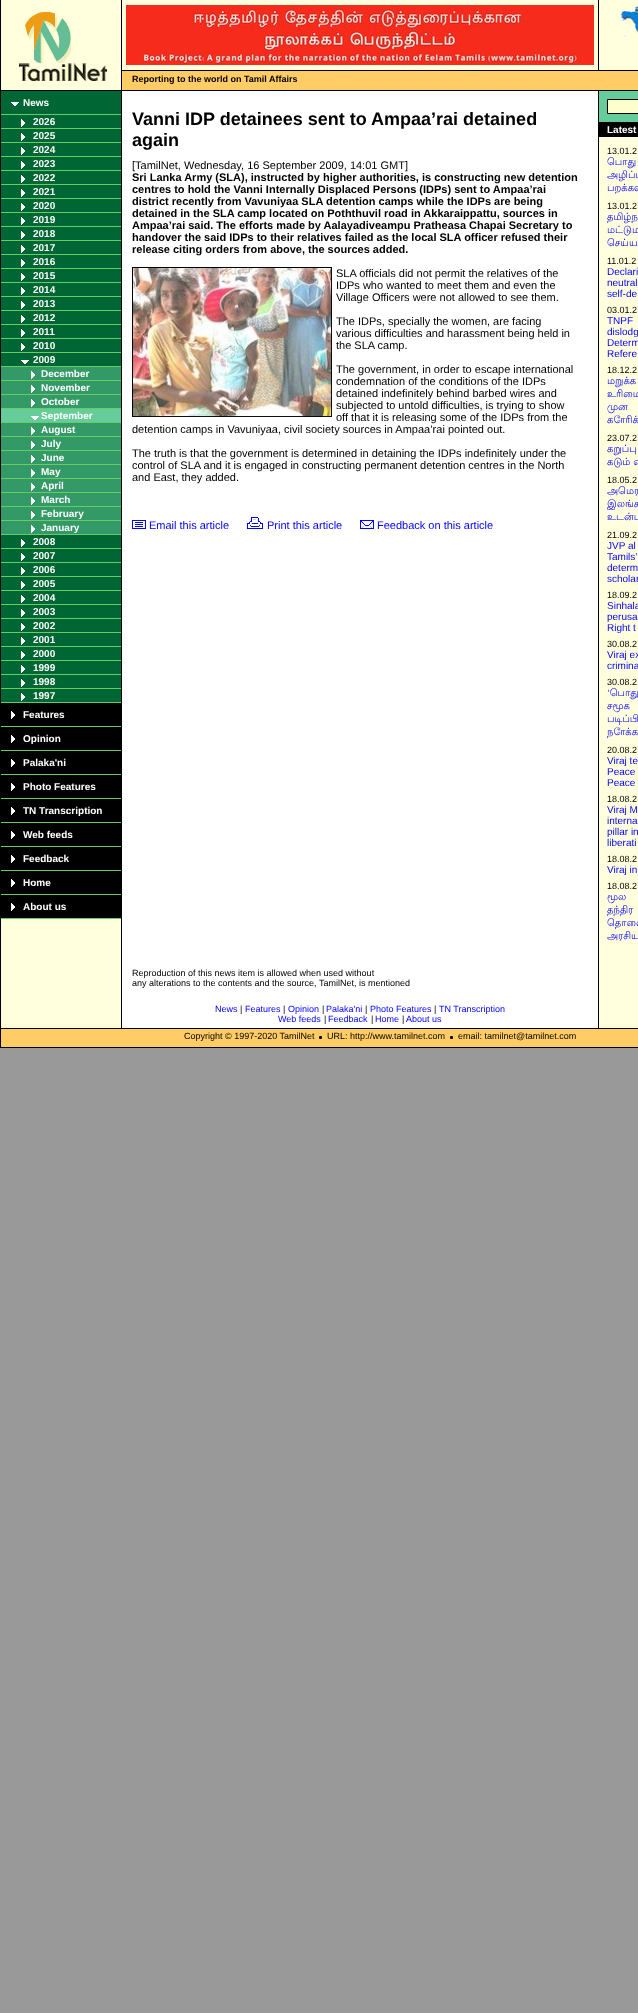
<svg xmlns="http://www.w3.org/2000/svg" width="638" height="2013">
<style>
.a{font:bold 9px Liberation Sans;fill:#000}
.b{font:bold 10px Liberation Sans;fill:#fff}
.c{font:bold 18px Liberation Sans;fill:#000}
.d{font:11px Liberation Sans;fill:#000}
.e{font:bold 11px Liberation Sans;fill:#000}
.f{font:11px Liberation Sans;fill:#00f}
.g{font:9px Liberation Sans;fill:#000}
.h{font:10px Lohit Tamil;fill:#00f}
.i{font:10px Liberation Sans;fill:#00f}
.j{font:9px Liberation Sans;fill:#00f}
</style>
<rect width="100%" height="100%" fill="#999"/>
<path fill="#ffd" d="M1 0h637v1028H1z"/>
<path fill="#000" d="M0 1047h638v1H0z"/>
<path fill="#000" d="M0 0h1v1048H0z"/>
<path fill="#000" d="M1 90h637v1H1z"/>
<path fill="#000" d="M121 0h1v90H121z"/>
<image href="1.png" x="19" y="12" width="88" height="69"/>
<path fill="#000" d="M122 70h516v1H122z"/>
<path fill="#000" d="M598 0h1v70H598z"/>
<image href="2.png" x="126" y="5" width="468" height="60"/>
<image href="3.png" x="619" y="6" width="19" height="32"/>
<path fill="#fc6" d="M122 71h516v19H122z"/>
<path fill="#063" d="M1 91h120v23H1z"/>
<image href="4.png" x="11" y="102" width="8" height="4"/>
<path fill="#6c6" d="M1 114h120v1H1z"/>
<path fill="#063" d="M1 115h120v13H1z"/>
<image href="5.png" x="21" y="119" width="4" height="8"/>
<path fill="#6c6" d="M1 128h120v1H1z"/>
<path fill="#063" d="M1 129h120v13H1z"/>
<image href="5.png" x="21" y="133" width="4" height="8"/>
<path fill="#6c6" d="M1 142h120v1H1z"/>
<path fill="#063" d="M1 143h120v13H1z"/>
<image href="5.png" x="21" y="147" width="4" height="8"/>
<path fill="#6c6" d="M1 156h120v1H1z"/>
<path fill="#063" d="M1 157h120v13H1z"/>
<image href="5.png" x="21" y="161" width="4" height="8"/>
<path fill="#6c6" d="M1 170h120v1H1z"/>
<path fill="#063" d="M1 171h120v13H1z"/>
<image href="5.png" x="21" y="175" width="4" height="8"/>
<path fill="#6c6" d="M1 184h120v1H1z"/>
<path fill="#063" d="M1 185h120v13H1z"/>
<image href="5.png" x="21" y="189" width="4" height="8"/>
<path fill="#6c6" d="M1 198h120v1H1z"/>
<path fill="#063" d="M1 199h120v13H1z"/>
<image href="5.png" x="21" y="203" width="4" height="8"/>
<path fill="#6c6" d="M1 212h120v1H1z"/>
<path fill="#063" d="M1 213h120v13H1z"/>
<image href="5.png" x="21" y="217" width="4" height="8"/>
<path fill="#6c6" d="M1 226h120v1H1z"/>
<path fill="#063" d="M1 227h120v13H1z"/>
<image href="5.png" x="21" y="231" width="4" height="8"/>
<path fill="#6c6" d="M1 240h120v1H1z"/>
<path fill="#063" d="M1 241h120v13H1z"/>
<image href="5.png" x="21" y="245" width="4" height="8"/>
<path fill="#6c6" d="M1 254h120v1H1z"/>
<path fill="#063" d="M1 255h120v13H1z"/>
<image href="5.png" x="21" y="259" width="4" height="8"/>
<path fill="#6c6" d="M1 268h120v1H1z"/>
<path fill="#063" d="M1 269h120v13H1z"/>
<image href="5.png" x="21" y="273" width="4" height="8"/>
<path fill="#6c6" d="M1 282h120v1H1z"/>
<path fill="#063" d="M1 283h120v13H1z"/>
<image href="5.png" x="21" y="287" width="4" height="8"/>
<path fill="#6c6" d="M1 296h120v1H1z"/>
<path fill="#063" d="M1 297h120v13H1z"/>
<image href="5.png" x="21" y="301" width="4" height="8"/>
<path fill="#6c6" d="M1 310h120v1H1z"/>
<path fill="#063" d="M1 311h120v13H1z"/>
<image href="5.png" x="21" y="315" width="4" height="8"/>
<path fill="#6c6" d="M1 324h120v1H1z"/>
<path fill="#063" d="M1 325h120v13H1z"/>
<image href="5.png" x="21" y="329" width="4" height="8"/>
<path fill="#6c6" d="M1 338h120v1H1z"/>
<path fill="#063" d="M1 339h120v13H1z"/>
<image href="5.png" x="21" y="343" width="4" height="8"/>
<path fill="#6c6" d="M1 352h120v1H1z"/>
<path fill="#063" d="M1 353h120v13H1z"/>
<image href="4.png" x="21" y="360" width="8" height="4"/>
<path fill="#6c6" d="M1 366h120v1H1z"/>
<path fill="#396" d="M1 367h120v13H1z"/>
<image href="6.png" x="31" y="371" width="4" height="8"/>
<path fill="#6c6" d="M1 380h120v1H1z"/>
<path fill="#396" d="M1 381h120v13H1z"/>
<image href="6.png" x="31" y="385" width="4" height="8"/>
<path fill="#6c6" d="M1 394h120v1H1z"/>
<path fill="#396" d="M1 395h120v13H1z"/>
<image href="6.png" x="31" y="399" width="4" height="8"/>
<path fill="#6c6" d="M1 408h120v1H1z"/>
<path fill="#6c9" d="M1 409h120v13H1z"/>
<image href="7.png" x="31" y="416" width="8" height="4"/>
<path fill="#6c6" d="M1 422h120v1H1z"/>
<path fill="#396" d="M1 423h120v13H1z"/>
<image href="6.png" x="31" y="427" width="4" height="8"/>
<path fill="#6c6" d="M1 436h120v1H1z"/>
<path fill="#396" d="M1 437h120v13H1z"/>
<image href="6.png" x="31" y="441" width="4" height="8"/>
<path fill="#6c6" d="M1 450h120v1H1z"/>
<path fill="#396" d="M1 451h120v13H1z"/>
<image href="6.png" x="31" y="455" width="4" height="8"/>
<path fill="#6c6" d="M1 464h120v1H1z"/>
<path fill="#396" d="M1 465h120v13H1z"/>
<image href="6.png" x="31" y="469" width="4" height="8"/>
<path fill="#6c6" d="M1 478h120v1H1z"/>
<path fill="#396" d="M1 479h120v13H1z"/>
<image href="6.png" x="31" y="483" width="4" height="8"/>
<path fill="#6c6" d="M1 492h120v1H1z"/>
<path fill="#396" d="M1 493h120v13H1z"/>
<image href="6.png" x="31" y="497" width="4" height="8"/>
<path fill="#6c6" d="M1 506h120v1H1z"/>
<path fill="#396" d="M1 507h120v13H1z"/>
<image href="6.png" x="31" y="511" width="4" height="8"/>
<path fill="#6c6" d="M1 520h120v1H1z"/>
<path fill="#396" d="M1 521h120v13H1z"/>
<image href="6.png" x="31" y="525" width="4" height="8"/>
<path fill="#6c6" d="M1 534h120v1H1z"/>
<path fill="#063" d="M1 535h120v13H1z"/>
<image href="5.png" x="21" y="539" width="4" height="8"/>
<path fill="#6c6" d="M1 548h120v1H1z"/>
<path fill="#063" d="M1 549h120v13H1z"/>
<image href="5.png" x="21" y="553" width="4" height="8"/>
<path fill="#6c6" d="M1 562h120v1H1z"/>
<path fill="#063" d="M1 563h120v13H1z"/>
<image href="5.png" x="21" y="567" width="4" height="8"/>
<path fill="#6c6" d="M1 576h120v1H1z"/>
<path fill="#063" d="M1 577h120v13H1z"/>
<image href="5.png" x="21" y="581" width="4" height="8"/>
<path fill="#6c6" d="M1 590h120v1H1z"/>
<path fill="#063" d="M1 591h120v13H1z"/>
<image href="5.png" x="21" y="595" width="4" height="8"/>
<path fill="#6c6" d="M1 604h120v1H1z"/>
<path fill="#063" d="M1 605h120v13H1z"/>
<image href="5.png" x="21" y="609" width="4" height="8"/>
<path fill="#6c6" d="M1 618h120v1H1z"/>
<path fill="#063" d="M1 619h120v13H1z"/>
<image href="5.png" x="21" y="623" width="4" height="8"/>
<path fill="#6c6" d="M1 632h120v1H1z"/>
<path fill="#063" d="M1 633h120v13H1z"/>
<image href="5.png" x="21" y="637" width="4" height="8"/>
<path fill="#6c6" d="M1 646h120v1H1z"/>
<path fill="#063" d="M1 647h120v13H1z"/>
<image href="5.png" x="21" y="651" width="4" height="8"/>
<path fill="#6c6" d="M1 660h120v1H1z"/>
<path fill="#063" d="M1 661h120v13H1z"/>
<image href="5.png" x="21" y="665" width="4" height="8"/>
<path fill="#6c6" d="M1 674h120v1H1z"/>
<path fill="#063" d="M1 675h120v13H1z"/>
<image href="5.png" x="21" y="679" width="4" height="8"/>
<path fill="#6c6" d="M1 688h120v1H1z"/>
<path fill="#063" d="M1 689h120v13H1z"/>
<image href="5.png" x="21" y="693" width="4" height="8"/>
<path fill="#6c6" d="M1 702h120v1H1z"/>
<path fill="#000" d="M1 703h120v23H1z"/>
<image href="8.png" x="11" y="711" width="4" height="8"/>
<path fill="#6c6" d="M1 726h120v1H1z"/>
<path fill="#000" d="M1 727h120v23H1z"/>
<image href="8.png" x="11" y="735" width="4" height="8"/>
<path fill="#6c6" d="M1 750h120v1H1z"/>
<path fill="#000" d="M1 751h120v23H1z"/>
<image href="8.png" x="11" y="759" width="4" height="8"/>
<path fill="#6c6" d="M1 774h120v1H1z"/>
<path fill="#000" d="M1 775h120v23H1z"/>
<image href="8.png" x="11" y="783" width="4" height="8"/>
<path fill="#6c6" d="M1 798h120v1H1z"/>
<path fill="#000" d="M1 799h120v23H1z"/>
<image href="8.png" x="11" y="807" width="4" height="8"/>
<path fill="#6c6" d="M1 822h120v1H1z"/>
<path fill="#000" d="M1 823h120v23H1z"/>
<image href="8.png" x="11" y="831" width="4" height="8"/>
<path fill="#6c6" d="M1 846h120v1H1z"/>
<path fill="#000" d="M1 847h120v23H1z"/>
<image href="8.png" x="11" y="855" width="4" height="8"/>
<path fill="#6c6" d="M1 870h120v1H1z"/>
<path fill="#000" d="M1 871h120v23H1z"/>
<image href="8.png" x="11" y="879" width="4" height="8"/>
<path fill="#6c6" d="M1 894h120v1H1z"/>
<path fill="#000" d="M1 895h120v23H1z"/>
<image href="8.png" x="11" y="903" width="4" height="8"/>
<path fill="#6c6" d="M1 918h120v1H1z"/>
<path fill="#fff" d="M122 91h476v937H122z"/>
<path fill="#000" d="M598 91h1v937H598z"/>
<path fill="#000" d="M121 91h1v937H121z"/>
<image href="9.png" x="132" y="267" width="200" height="150"/>
<image href="10.png" x="132" y="520" width="14" height="9"/>
<image href="11.png" x="247" y="517" width="16" height="12"/>
<image href="12.png" x="360" y="520" width="14" height="9"/>
<path fill="#6c9" d="M599 91h39v31H599z"/>
<path fill="#000" d="M599 122h39v15H599z"/>
<path fill="#ffc" stroke="#000" d="M607.5 99.5h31v14H607.5z"/>
<path fill="#fc6" d="M1 1029h637v18H1z"/>
<path fill="#000" d="M1 1028h637v1H1z"/>
<path fill="none" stroke="#000" d="M319.5 1036.5h2v2H319.5z"/>
<path fill="none" stroke="#000" d="M450.5 1036.5h2v2H450.5z"/>
<path fill="#000" d="M320 1037h1v1H320z"/>
<path fill="#000" d="M451 1037h1v1H451z"/>
<text class="a" x="132" y="82">Reporting to the world on Tamil Affairs</text>
<text class="b" x="23" y="106">News</text>
<text class="b" x="33" y="125">2026</text>
<text class="b" x="33" y="139">2025</text>
<text class="b" x="33" y="153">2024</text>
<text class="b" x="33" y="167">2023</text>
<text class="b" x="33" y="181">2022</text>
<text class="b" x="33" y="195">2021</text>
<text class="b" x="33" y="209">2020</text>
<text class="b" x="33" y="223">2019</text>
<text class="b" x="33" y="237">2018</text>
<text class="b" x="33" y="251">2017</text>
<text class="b" x="33" y="265">2016</text>
<text class="b" x="33" y="279">2015</text>
<text class="b" x="33" y="293">2014</text>
<text class="b" x="33" y="307">2013</text>
<text class="b" x="33" y="321">2012</text>
<text class="b" x="33" y="335">2011</text>
<text class="b" x="33" y="349">2010</text>
<text class="b" x="33" y="363">2009</text>
<text class="b" x="41" y="377">December</text>
<text class="b" x="41" y="391">November</text>
<text class="b" x="41" y="405">October</text>
<text class="b" x="41" y="419">September</text>
<text class="b" x="41" y="433">August</text>
<text class="b" x="41" y="447">July</text>
<text class="b" x="41" y="461">June</text>
<text class="b" x="41" y="475">May</text>
<text class="b" x="41" y="489">April</text>
<text class="b" x="41" y="503">March</text>
<text class="b" x="41" y="517">February</text>
<text class="b" x="41" y="531">January</text>
<text class="b" x="33" y="545">2008</text>
<text class="b" x="33" y="559">2007</text>
<text class="b" x="33" y="573">2006</text>
<text class="b" x="33" y="587">2005</text>
<text class="b" x="33" y="601">2004</text>
<text class="b" x="33" y="615">2003</text>
<text class="b" x="33" y="629">2002</text>
<text class="b" x="33" y="643">2001</text>
<text class="b" x="33" y="657">2000</text>
<text class="b" x="33" y="671">1999</text>
<text class="b" x="33" y="685">1998</text>
<text class="b" x="33" y="699">1997</text>
<text class="b" x="23" y="718">Features</text>
<text class="b" x="23" y="742">Opinion</text>
<text class="b" x="23" y="766">Palaka'ni</text>
<text class="b" x="23" y="790">Photo Features</text>
<text class="b" x="23" y="814">TN Transcription</text>
<text class="b" x="23" y="838">Web feeds</text>
<text class="b" x="23" y="862">Feedback</text>
<text class="b" x="23" y="886">Home</text>
<text class="b" x="23" y="910">About us</text>
<text class="c" x="132" y="125">Vanni IDP detainees sent to Ampaa’rai detained</text>
<text class="c" x="132" y="146">again</text>
<text class="d" x="132" y="169">[TamilNet, Wednesday, 16 September 2009, 14:01 GMT]</text>
<text class="e" x="132" y="181">Sri Lanka Army (SLA), instructed by higher authorities, is constructing new detention</text>
<text class="e" x="132" y="193">centres to hold the Vanni Internally Displaced Persons (IDPs) sent to Ampaa’rai</text>
<text class="e" x="132" y="205">district recently from Vavuniyaa SLA detention camps while the IDPs are being</text>
<text class="e" x="132" y="217">detained in the SLA camp located on Poththuvil road in Akkaraippattu, sources in</text>
<text class="e" x="132" y="229">Ampaa’rai said. The efforts made by Aalayadiveampu Pratheasa Chapai Secretary to</text>
<text class="e" x="132" y="241">handover the said IDPs to their relatives failed as the local SLA officer refused their</text>
<text class="e" x="132" y="253">release citing orders from above, the sources added.</text>
<text class="d" x="336" y="277">SLA officials did not permit the relatives of the</text>
<text class="d" x="336" y="289">IDPs who wanted to meet them and even the</text>
<text class="d" x="336" y="301">Village Officers were not allowed to see them.</text>
<text class="d" x="336" y="325">The IDPs, specially the women, are facing</text>
<text class="d" x="336" y="337">various difficulties and harassment being held in</text>
<text class="d" x="336" y="349">the SLA camp.</text>
<text class="d" x="336" y="373">The government, in order to escape international</text>
<text class="d" x="336" y="385">condemnation of the conditions of the IDPs</text>
<text class="d" x="336" y="397">detained indefinitely behind barbed wires and</text>
<text class="d" x="336" y="409">subjected to untold difficulties, is trying to show</text>
<text class="d" x="336" y="421">off that it is releasing some of the IDPs from the</text>
<text class="d" x="132" y="433">detention camps in Vavuniyaa, civil society sources in Ampaa’rai pointed out.</text>
<text class="d" x="132" y="457">The truth is that the government is determined in detaining the IDPs indefinitely under the</text>
<text class="d" x="132" y="469">control of SLA and it is engaged in constructing permanent detention centres in the North</text>
<text class="d" x="132" y="481">and East, they added.</text>
<text class="f" x="149" y="529">Email this article</text>
<text class="f" x="267" y="529">Print this article</text>
<text class="f" x="377" y="529">Feedback on this article</text>
<text class="b" x="607" y="133">Latest</text>
<text class="g" x="607" y="154">13.01.2</text>
<text class="h" x="607" y="165">பொது</text>
<text class="h" x="607" y="178">அழிப்ப</text>
<text class="h" x="607" y="191">பறக்கவ</text>
<text class="g" x="607" y="209">13.01.2</text>
<text class="h" x="607" y="220">தமிழ்நா</text>
<text class="h" x="607" y="233">மட்டும</text>
<text class="h" x="607" y="246">செய்ய</text>
<text class="g" x="607" y="264">11.01.2</text>
<text class="i" x="607" y="275">Declari</text>
<text class="i" x="607" y="286">neutral</text>
<text class="i" x="607" y="297">self-de</text>
<text class="g" x="607" y="313">03.01.2</text>
<text class="i" x="607" y="324">TNPF</text>
<text class="i" x="607" y="335">dislodg</text>
<text class="i" x="607" y="346">Determ</text>
<text class="i" x="607" y="357">Refere</text>
<text class="g" x="607" y="373">18.12.2</text>
<text class="h" x="607" y="384">மறுக்க</text>
<text class="h" x="607" y="397">உரிமை</text>
<text class="h" x="607" y="410">முன</text>
<text class="h" x="607" y="423">கோரிக்</text>
<text class="g" x="607" y="441">23.07.2</text>
<text class="h" x="607" y="452">கறுப்பு</text>
<text class="h" x="607" y="465">கடும் எ</text>
<text class="g" x="607" y="483">18.05.2</text>
<text class="h" x="607" y="494" word-spacing="-1">அமெர</text>
<text class="h" x="607" y="507">இலங்க</text>
<text class="h" x="607" y="520">உடன்ப</text>
<text class="g" x="607" y="538">21.09.2</text>
<text class="i" x="607" y="549">JVP al</text>
<text class="i" x="607" y="560">Tamils’</text>
<text class="i" x="607" y="571">determ</text>
<text class="i" x="607" y="582">scholar</text>
<text class="g" x="607" y="598">18.09.2</text>
<text class="i" x="607" y="609">Sinhala</text>
<text class="i" x="607" y="620">perusa</text>
<text class="i" x="607" y="631">Right t</text>
<text class="g" x="607" y="647">30.08.2</text>
<text class="i" x="607" y="658">Viraj ex</text>
<text class="i" x="607" y="669">crimina</text>
<text class="g" x="607" y="685">30.08.2</text>
<text class="h" x="607" y="696" word-spacing="-1">‘பொது</text>
<text class="h" x="607" y="709" word-spacing="-1">சமூக</text>
<text class="h" x="607" y="722">படிப்பி</text>
<text class="h" x="607" y="735">நோக்க</text>
<text class="g" x="607" y="753">20.08.2</text>
<text class="i" x="607" y="764">Viraj te</text>
<text class="i" x="607" y="775">Peace</text>
<text class="i" x="607" y="786">Peace</text>
<text class="g" x="607" y="802">18.08.2</text>
<text class="i" x="607" y="813">Viraj M</text>
<text class="i" x="607" y="824">interna</text>
<text class="i" x="607" y="835">pillar in</text>
<text class="i" x="607" y="846">liberati</text>
<text class="g" x="607" y="862">18.08.2</text>
<text class="i" x="607" y="873">Viraj in</text>
<text class="g" x="607" y="889">18.08.2</text>
<text class="h" x="607" y="900">மூல</text>
<text class="h" x="607" y="913">தந்திர</text>
<text class="h" x="607" y="926">தொலை</text>
<text class="h" x="607" y="939">அரசிய</text>
<text class="g" x="132" y="976">Reproduction of this news item is allowed when used without</text>
<text class="g" x="132" y="986">any alterations to the contents and the source, TamilNet, is mentioned</text>
<text class="j" x="215" y="1012">News</text>
<text class="g" x="240" y="1012">|</text>
<text class="j" x="245" y="1012">Features</text>
<text class="g" x="283" y="1012">|</text>
<text class="j" x="288" y="1012">Opinion</text>
<text class="g" x="322" y="1012">|</text>
<text class="j" x="326" y="1012">Palaka'ni</text>
<text class="g" x="365" y="1012">|</text>
<text class="j" x="370" y="1012">Photo Features</text>
<text class="g" x="434" y="1012">|</text>
<text class="j" x="439" y="1012">TN Transcription</text>
<text class="j" x="278" y="1022">Web feeds</text>
<text class="g" x="324" y="1022">|</text>
<text class="j" x="328" y="1022">Feedback</text>
<text class="g" x="371" y="1022">|</text>
<text class="j" x="375" y="1022">Home</text>
<text class="g" x="402" y="1022">|</text>
<text class="j" x="406" y="1022">About us</text>
<text class="g" x="184" y="1039">Copyright © 1997-2020 TamilNet</text>
<text class="g" x="327" y="1039">URL: http://www.tamilnet.com</text>
<text class="g" x="458" y="1039">email: tamilnet@tamilnet.com</text>
</svg>
